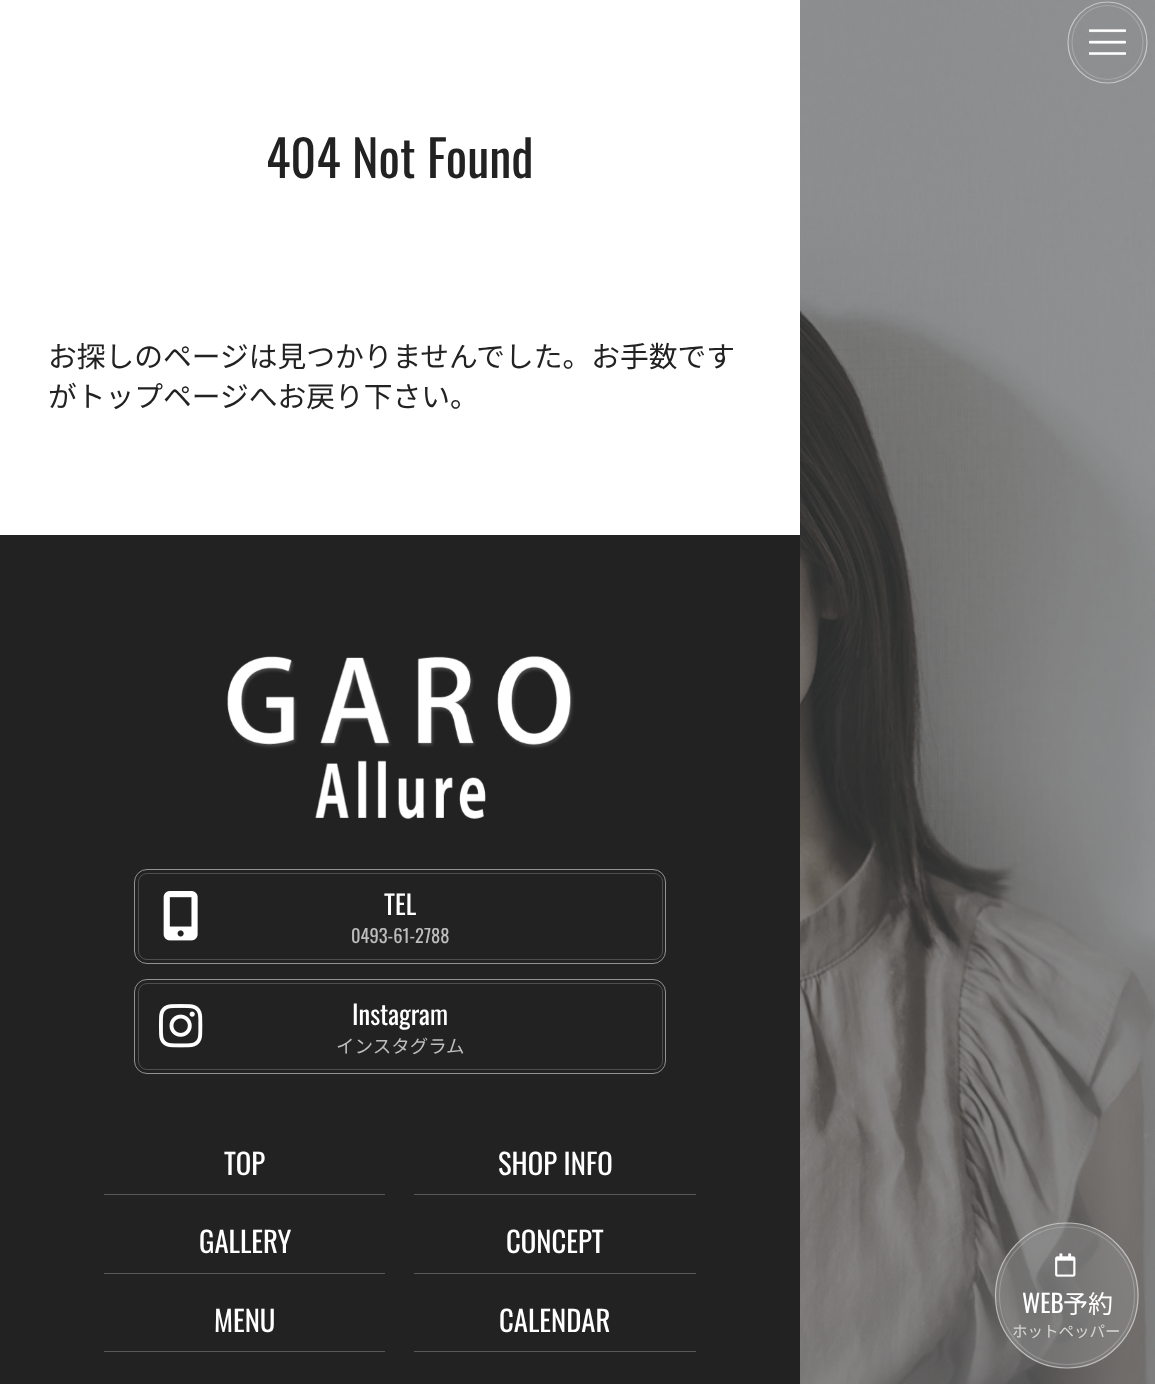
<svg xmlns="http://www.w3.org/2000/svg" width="1155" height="1384">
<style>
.a{font:50.25px Oswald;fill:#222}
.b{font:100 28.75px Noto Sans JP;fill:#222}
.c{font:26.5px Oswald;fill:#fff}
.d{font:18.5px Oswald;fill:#bdbdbd}
.e{font:100 18.5px Noto Sans JP;fill:#bdbdbd}
.f{font:28.75px Oswald;fill:#fff}
.g{font:25px Oswald;fill:#fff}
.h{font:100 25px Noto Sans JP;fill:#fff}
.i{font:100 15.5px Noto Sans JP;fill:#d7d7d6}
</style>
<rect width="100%" height="100%" fill="#fff"/>
<image href="1.png" x="800" y="0" width="355" height="1384"/>
<path fill="none" stroke="#c6c7c7" stroke-width="1.2" d="M1107.5 2c21.5 0 39.5 18 39.5 40.5c0 22.5-18 40.5-39.5 40.5c-21.5 0-39.5-18-39.5-40.5c0-22.5 18-40.5 39.5-40.5z"/>
<path fill="none" stroke="#a5a5a6" stroke-width="1.2" d="M1107.5 5.5c19.5 0 35.5 16.5 35.5 37c0 20.5-16 37-35.5 37c-19.5 0-35.5-16.5-35.5-37c0-20.5 16-37 35.5-37z"/>
<image href="2.png" x="1089" y="29" width="37" height="26"/>
<path fill="#222" d="M0 535h800v849H0z"/>
<image href="3.png" x="227" y="656" width="347" height="163"/>
<rect fill="none" stroke="#919191" x="134.5" y="869.5" width="531" height="94" rx="12.5"/>
<rect fill="none" stroke="#4e4e4e" x="138.5" y="873.5" width="524" height="86" rx="8.5"/>
<image href="4.png" x="163" y="891" width="35" height="50"/>
<rect fill="none" stroke="#919191" x="134.5" y="979.5" width="531" height="94" rx="12.5"/>
<rect fill="none" stroke="#4e4e4e" x="138.5" y="983.5" width="524" height="86" rx="8.5"/>
<image href="5.png" x="158" y="1004" width="45" height="44"/>
<path fill="#595959" d="M104 1194h281v1H104z"/>
<path fill="#595959" d="M414 1194h282v1H414z"/>
<path fill="#595959" d="M104 1273h281v1H104z"/>
<path fill="#595959" d="M414 1273h282v1H414z"/>
<path fill="#595959" d="M104 1351h281v1H104z"/>
<path fill="#595959" d="M414 1351h282v1H414z"/>
<ellipse fill="#8f8f8f80" cx="1067" cy="1295.5" rx="72" ry="73"/>
<path fill="none" stroke="#ffffff80" stroke-width="1.2" d="M1067 1223c39 0 71 32.5 71 72.5c0 40-32 72.5-71 72.5c-39.5 0-71.5-32.5-71.5-72.5c0-40 32-72.5 71.5-72.5z"/>
<path fill="none" stroke="#ffffff33" stroke-width="1.2" d="M1067 1227c37 0 67.5 30.5 67.5 68.5c0 38-30.5 69-67.5 69c-37.5 0-67.5-31-67.5-69c0-38 30-68.5 67.5-68.5z"/>
<image href="6.png" x="1055" y="1253" width="21" height="24"/>
<text class="a" x="266" y="178">404 Not Found</text>
<text class="b" x="48" y="367">お探しのページは見つかりませんでした。お手数です</text>
<text class="b" x="48" y="407">がトップページへお戻り下さい。</text>
<text class="c" x="384" y="915">TEL</text>
<text class="d" x="351" y="943">0493-61-2788</text>
<text class="c" x="352" y="1025">Instagram</text>
<text class="e" x="336" y="1053">インスタグラム</text>
<text class="f" x="224" y="1175">TOP</text>
<text class="f" x="498" y="1175">SHOP INFO</text>
<text class="f" x="199" y="1253">GALLERY</text>
<text class="f" x="506" y="1253">CONCEPT</text>
<text class="f" x="214" y="1332">MENU</text>
<text class="f" x="499" y="1332">CALENDAR</text>
<text class="g" x="1022" y="1313">WEB</text>
<text class="h" x="1063" y="1313">予約</text>
<text class="i" x="1012" y="1337">ホットペッパー</text>
</svg>
